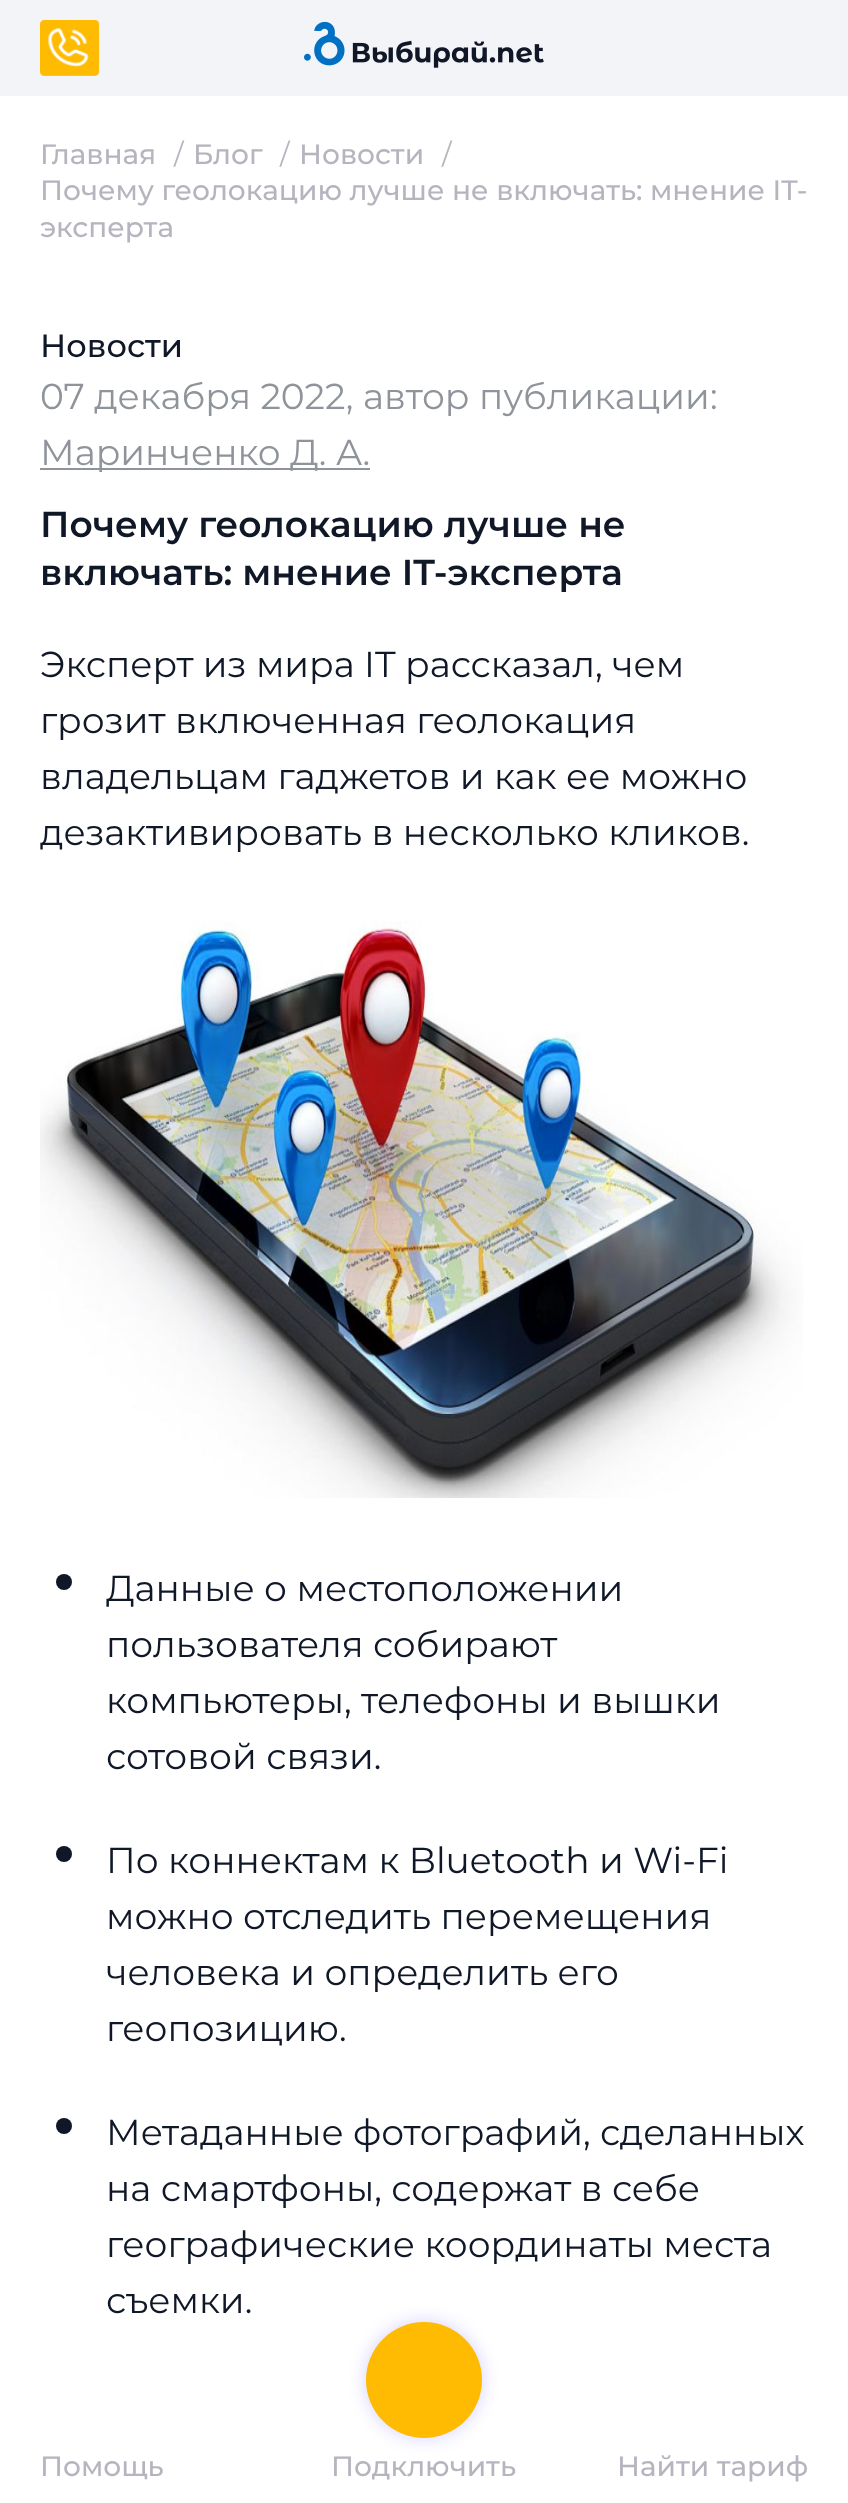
<svg xmlns="http://www.w3.org/2000/svg" width="848" height="2503">
<style>
.a{font:500 28px Montserrat;fill:#b6b4bf}
.b{font:28px Montserrat;fill:#b6b4bf}
.c{font:500 32px Montserrat;fill:#101828}
.d{font:36px Montserrat;fill:#8f939a}
.e{font:600 36px Montserrat;fill:#101828}
.f{font:36px Montserrat;fill:#101828}
</style>
<rect width="100%" height="100%" fill="#fff"/>
<path fill="#f3f4f8" d="M0 0h848v96H0z"/>
<image href="1.png" x="40" y="20" width="60" height="56"/>
<image href="2.png" x="304" y="21" width="240" height="47"/>
<path fill="#8f939a" d="M40 468h330v2H40z"/>
<image href="3.png" x="40" y="921" width="763" height="577"/>
<circle fill="#101828" cx="64" cy="1582" r="8"/>
<circle fill="#101828" cx="64" cy="1854" r="8"/>
<circle fill="#101828" cx="64" cy="2126" r="8"/>
<rect fill="#d5d1ff" filter="blur(9px)" x="366" y="2322" width="116" height="116" rx="58"/>
<circle fill="#febb02" cx="424" cy="2380" r="58"/>
<text class="a" x="40" y="164">Главная</text>
<text class="b" x="174" y="164">/</text>
<text class="a" x="193" y="164">Блог</text>
<text class="b" x="280" y="164">/</text>
<text class="a" x="299" y="164">Новости</text>
<text class="b" x="442" y="164">/</text>
<text class="a" x="40" y="200">Почему геолокацию лучше не включать: мнение IT-</text>
<text class="a" x="40" y="237">эксперта</text>
<text class="c" x="40" y="357">Новости</text>
<text class="d" x="40" y="409">07 декабря 2022, автор публикации:</text>
<text class="d" x="40" y="465">Маринченко Д. А.</text>
<text class="e" x="40" y="537">Почему геолокацию лучше не</text>
<text class="e" x="40" y="585">включать: мнение IT-эксперта</text>
<text class="f" x="40" y="677">Эксперт из мира IT рассказал, чем</text>
<text class="f" x="40" y="733">грозит включенная геолокация</text>
<text class="f" x="40" y="789">владельцам гаджетов и как ее можно</text>
<text class="f" x="40" y="845">дезактивировать в несколько кликов.</text>
<text class="f" x="106" y="1601">Данные о местоположении</text>
<text class="f" x="106" y="1657">пользователя собирают</text>
<text class="f" x="106" y="1713">компьютеры, телефоны и вышки</text>
<text class="f" x="106" y="1769">сотовой связи.</text>
<text class="f" x="106" y="1873">По коннектам к Bluetooth и Wi-Fi</text>
<text class="f" x="106" y="1929">можно отследить перемещения</text>
<text class="f" x="106" y="1985">человека и определить его</text>
<text class="f" x="106" y="2041">геопозицию.</text>
<text class="f" x="106" y="2145">Метаданные фотографий, сделанных</text>
<text class="f" x="106" y="2201">на смартфоны, содержат в себе</text>
<text class="f" x="106" y="2257">географические координаты места</text>
<text class="f" x="106" y="2313">съемки.</text>
<text class="a" x="40" y="2476">Помощь</text>
<text class="a" x="331" y="2476">Подключить</text>
<text class="a" x="617" y="2476">Найти тариф</text>
</svg>
